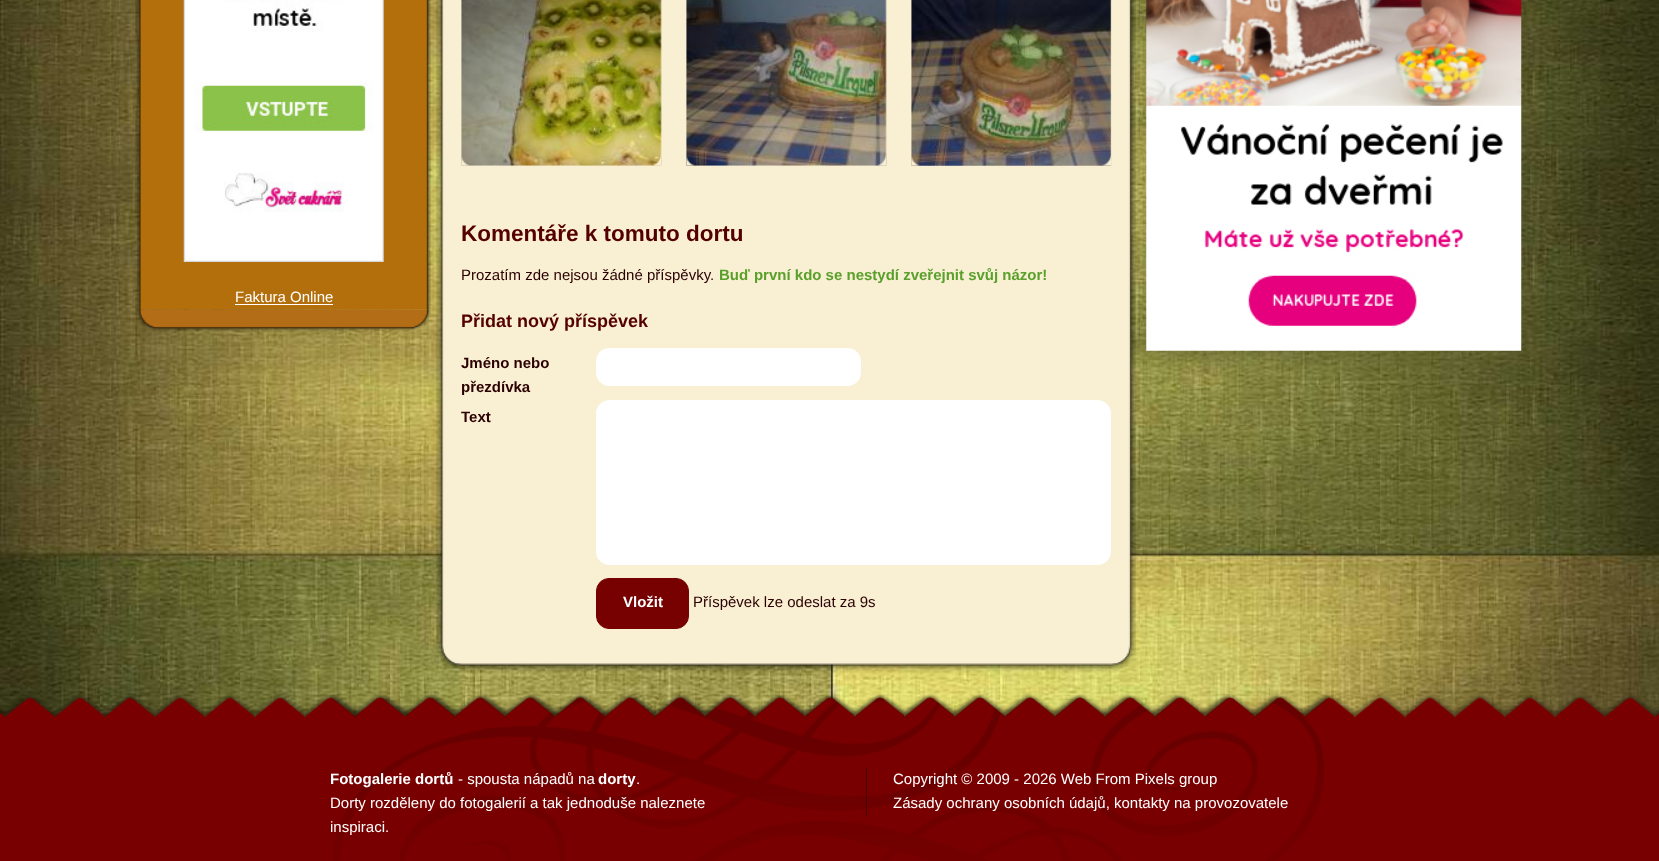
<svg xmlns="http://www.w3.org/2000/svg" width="1659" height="861">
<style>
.a{font:15px Liberation Sans;fill:#fff}
.b{font:bold 22.5px Liberation Sans;fill:#500}
.c{font:15px Liberation Sans;fill:#2b0000}
.d{font:bold 15px Liberation Sans;fill:#5aa02c}
.e{font:bold 18px Liberation Sans;fill:#500}
.f{font:bold 15px Liberation Sans;fill:#2b0000}
.g{font:bold 15px Liberation Sans;fill:#fff}
</style>
<rect width="100%" height="100%" fill="#fff"/>
<image href="1.png" x="0" y="0" width="1659" height="719"/>
<image href="2.png" x="1146" y="0" width="376" height="351"/>
<image href="3.png" x="136" y="0" width="295" height="310"/>
<image href="4.png" x="183" y="0" width="201" height="262"/>
<path fill="#fff" d="M235 304h98v1H235z"/>
<image href="5.png" x="136" y="309" width="295" height="23"/>
<image href="6.png" x="436" y="0" width="700" height="642"/>
<image href="7.png" x="461" y="0" width="201" height="166"/>
<image href="8.png" x="461" y="0" width="200" height="166"/>
<image href="9.png" x="686" y="0" width="201" height="166"/>
<image href="10.png" x="686" y="0" width="200" height="166"/>
<image href="11.png" x="911" y="0" width="201" height="166"/>
<image href="12.png" x="911" y="0" width="200" height="166"/>
<rect fill="#fff" stroke="#fff" x="596.5" y="348.5" width="264" height="37" rx="12.5"/>
<rect fill="#fff" stroke="#fff" x="596.5" y="400.5" width="514" height="164" rx="12.5"/>
<rect fill="#700" stroke="#700" x="596.5" y="578.5" width="92" height="50" rx="12.5"/>
<image href="13.png" x="436" y="642" width="700" height="31"/>
<image href="14.png" x="0" y="694" width="1659" height="167"/>
<image href="15.png" x="330" y="694" width="1000" height="167"/>
<path fill="#400" d="M866 768h1v48H866z"/>
<text class="a" x="235" y="302">Faktura Online</text>
<text class="b" x="461" y="241">Komentáře k tomuto dortu</text>
<text class="c" x="461" y="280">Prozatím zde nejsou žádné příspěvky.</text>
<text class="d" x="719" y="280">Buď první kdo se nestydí zveřejnit svůj názor!</text>
<text class="e" x="461" y="327">Přidat nový příspěvek</text>
<text class="f" x="461" y="368">Jméno nebo</text>
<text class="f" x="461" y="392">přezdívka</text>
<text class="f" x="461" y="422">Text</text>
<text class="g" x="623" y="607">Vložit</text>
<text class="c" x="693" y="607">Příspěvek lze odeslat za 9s</text>
<text class="g" x="330" y="784">Fotogalerie dortů</text>
<text class="a" x="458" y="784">- spousta nápadů na</text>
<text class="g" x="598" y="784">dorty</text>
<text class="a" x="636" y="784">.</text>
<text class="a" x="330" y="808">Dorty rozděleny do fotogalerií a tak jednoduše naleznete</text>
<text class="a" x="330" y="832">inspiraci.</text>
<text class="a" x="893" y="784">Copyright © 2009 - 2026 Web From Pixels group</text>
<text class="a" x="893" y="808">Zásady ochrany osobních údajů, kontakty na provozovatele</text>
</svg>
